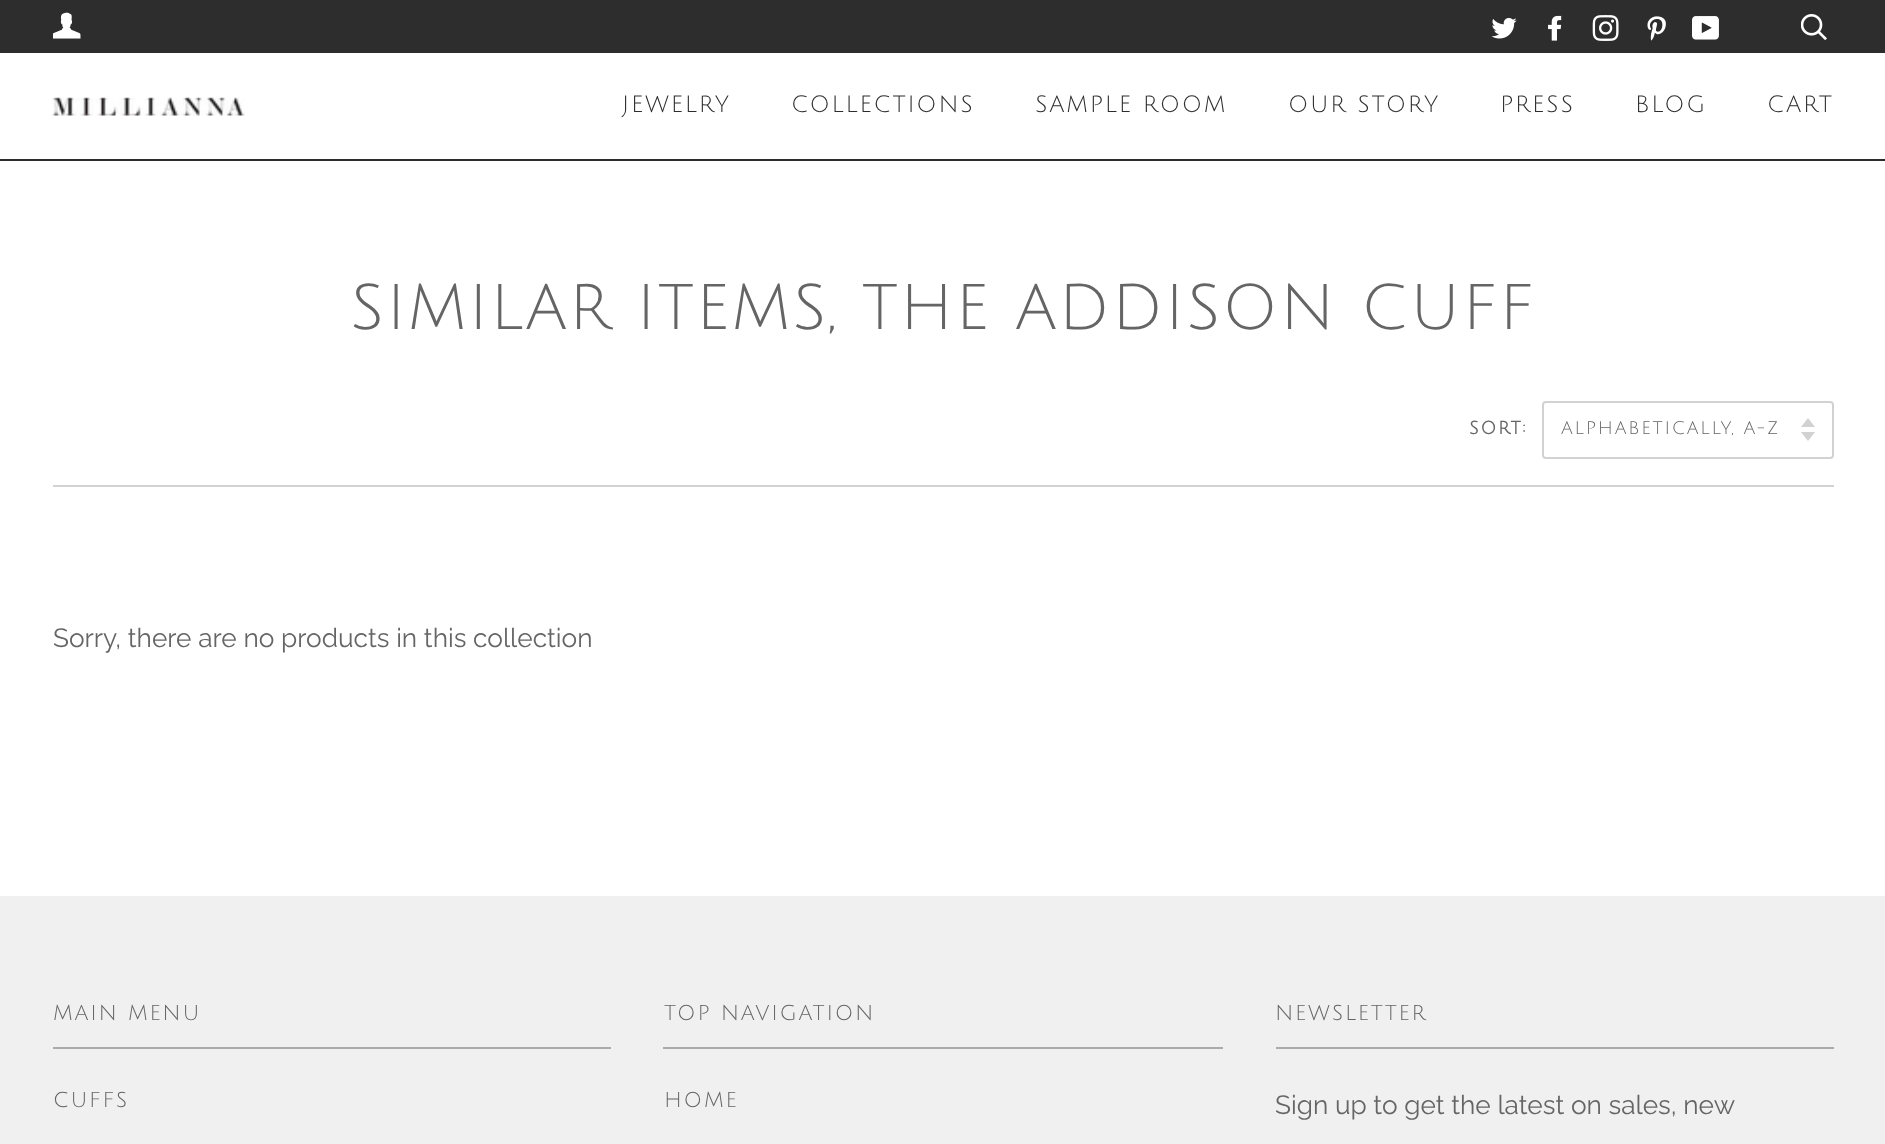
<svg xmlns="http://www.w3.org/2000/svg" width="1885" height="1144">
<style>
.a{font:23px Julius Sans One;letter-spacing:1.75px;fill:#2d2d2d}
.b{font:63px Julius Sans One;letter-spacing:1.75px;fill:#656565}
.c{font:bold 17.8px Julius Sans One;letter-spacing:1.75px;fill:#656565}
.d{font:17.8px Julius Sans One;letter-spacing:1.75px;fill:#656565}
.e{font:26.25px Raleway;fill:#656565}
.f{font:21px Julius Sans One;letter-spacing:1.75px;fill:#656565}
</style>
<rect width="100%" height="100%" fill="#fff"/>
<path fill="#2d2d2d" d="M0 0h1885v53H0z"/>
<image href="1.png" x="53" y="12" width="28" height="27"/>
<image href="2.png" x="1491" y="18" width="26" height="21"/>
<image href="3.png" x="1548" y="15" width="14" height="26"/>
<image href="4.png" x="1592" y="15" width="27" height="26"/>
<image href="5.png" x="1647" y="16" width="19" height="25"/>
<image href="6.png" x="1692" y="16" width="27" height="24"/>
<image href="7.png" x="1801" y="14" width="26" height="26"/>
<path fill="#2d2d2d" d="M0 159h1885v2H0z"/>
<image href="8.png" x="52" y="97" width="193" height="19"/>
<path fill="#d2d2d2" d="M1801 432l7 9l7-9zm7-14l-7 9h14z"/>
<rect fill="none" stroke="#d2d2d2" stroke-width="2" x="1543" y="402" width="290" height="56" rx="3"/>
<path fill="#d2d2d2" d="M53 485h1781v2H53z"/>
<path fill="#f0f0f0" d="M0 896h1885v248H0z"/>
<path fill="#ababab" d="M53 1047h558v2H53z"/>
<path fill="#ababab" d="M663 1047h560v2H663z"/>
<path fill="#ababab" d="M1276 1047h558v2H1276z"/>
<text class="a" x="622" y="112">JEWELRY</text>
<text class="a" x="791" y="112">COLLECTIONS</text>
<text class="a" x="1035" y="112">SAMPLE ROOM</text>
<text class="a" x="1288" y="112">OUR STORY</text>
<text class="a" x="1500" y="112">PRESS</text>
<text class="a" x="1635" y="112">BLOG</text>
<text class="a" x="1767" y="112">CART</text>
<text class="b" x="350" y="329">SIMILAR ITEMS, THE ADDISON CUFF</text>
<text class="c" x="1469" y="434">SORT:</text>
<text class="d" x="1561" y="434">ALPHABETICALLY, A-Z</text>
<text class="e" x="53" y="647">Sorry, there are no products in this collection</text>
<text class="f" x="53" y="1020">MAIN MENU</text>
<text class="f" x="53" y="1107">CUFFS</text>
<text class="f" x="664" y="1020">TOP NAVIGATION</text>
<text class="f" x="664" y="1107">HOME</text>
<text class="f" x="1275" y="1020">NEWSLETTER</text>
<text class="e" x="1275" y="1114">Sign up to get the latest on sales, new</text>
</svg>
